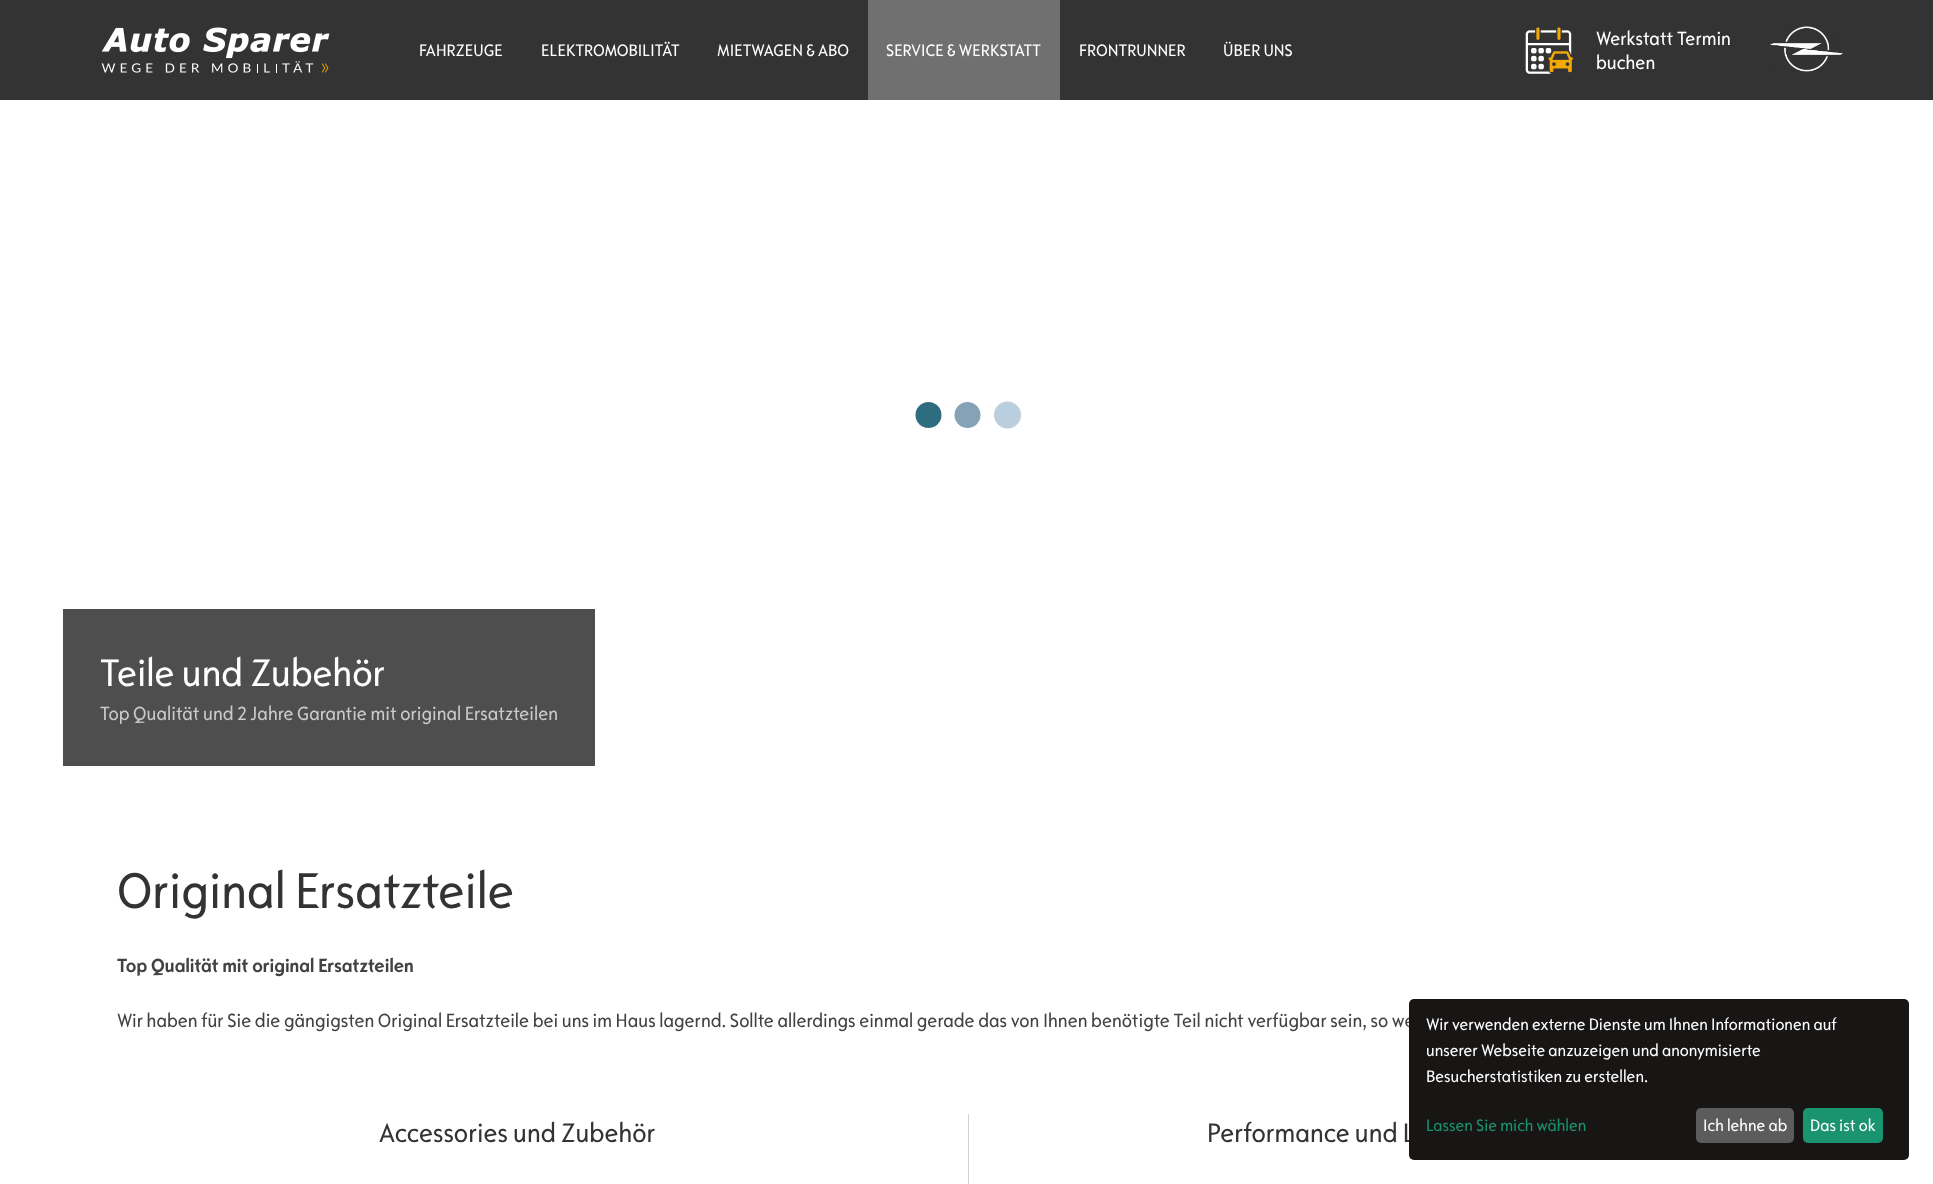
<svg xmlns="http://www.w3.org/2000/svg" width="1933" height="1184">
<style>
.a{font:17.5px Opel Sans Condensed;fill:#fff}
.b{font:20px Opel Sans Condensed;fill:#fff}
.c{font:40px Opel Sans Condensed;fill:#fff}
.d{font:20px Opel Sans Condensed;fill:#cacaca}
.e{font:52.5px Opel Sans Condensed;fill:#333}
.f{font:bold 20px Opel Sans Condensed;fill:#424242}
.g{font:20px Opel Sans Condensed;fill:#424242}
.h{font:28px Opel Sans Condensed;fill:#333}
.i{font:17.5px Opel Sans Condensed;fill:#1a936f}
</style>
<rect width="100%" height="100%" fill="#fff"/>
<path fill="#333" d="M0 0h1933v100H0z"/>
<image href="1.png" x="101" y="27" width="229" height="46"/>
<path fill="#707070" d="M868 0h192v100H868z"/>
<image href="2.png" x="1525" y="27" width="48" height="47"/>
<image href="3.png" x="1770" y="26" width="73" height="46"/>
<circle fill="#2e6d7f" cx="928.5" cy="415" r="13"/>
<circle fill="#85a2b6" cx="967.5" cy="415" r="13"/>
<circle fill="#bbcedd" cx="1007.5" cy="415" r="13.5"/>
<path fill="#4e4e4e" d="M63 609h532v157H63z"/>
<path fill="#d1d1d1" d="M968 1114h1v70H968z"/>
<rect fill="#ffffff99" filter="blur(4px)" x="1409" y="999" width="500" height="161" rx="5"/>
<text class="a" x="419" y="56">FAHRZEUGE</text>
<text class="a" x="541" y="56">ELEKTROMOBILITÄT</text>
<text class="a" x="717" y="56">MIETWAGEN &amp; ABO</text>
<text class="a" x="886" y="56">SERVICE &amp; WERKSTATT</text>
<text class="a" x="1079" y="56">FRONTRUNNER</text>
<text class="a" x="1223" y="56">ÜBER UNS</text>
<text class="b" x="1596" y="45">Werkstatt Termin</text>
<text class="b" x="1596" y="69">buchen</text>
<text class="c" x="100" y="686">Teile und Zubehör</text>
<text class="d" x="100" y="720">Top Qualität und 2 Jahre Garantie mit original Ersatzteilen</text>
<text class="e" x="117" y="908">Original Ersatzteile</text>
<text class="f" x="117" y="972">Top Qualität mit original Ersatzteilen</text>
<text class="g" x="117" y="1027">Wir haben für Sie die gängigsten Original Ersatzteile bei uns im Haus lagernd. Sollte allerdings einmal gerade das von Ihnen benötigte Teil nicht verfügbar sein, so we</text>
<text class="h" x="379" y="1142">Accessories und Zubehör</text>
<text class="h" x="1207" y="1142">Performance und L</text>
<rect fill="#181515" x="1409" y="999" width="500" height="161" rx="5"/>
<text class="a" x="1426" y="1030">Wir verwenden externe Dienste um Ihnen Informationen auf</text>
<text class="a" x="1426" y="1056">unserer Webseite anzuzeigen und anonymisierte</text>
<text class="a" x="1426" y="1082">Besucherstatistiken zu erstellen.</text>
<text class="i" x="1426" y="1131">Lassen Sie mich wählen</text>
<rect fill="#5c5c5c" x="1696" y="1108" width="98" height="35" rx="5"/>
<text class="a" x="1703" y="1131">Ich lehne ab</text>
<rect fill="#1a936f" x="1803" y="1108" width="80" height="35" rx="5"/>
<text class="a" x="1810" y="1131">Das ist ok</text>
</svg>
